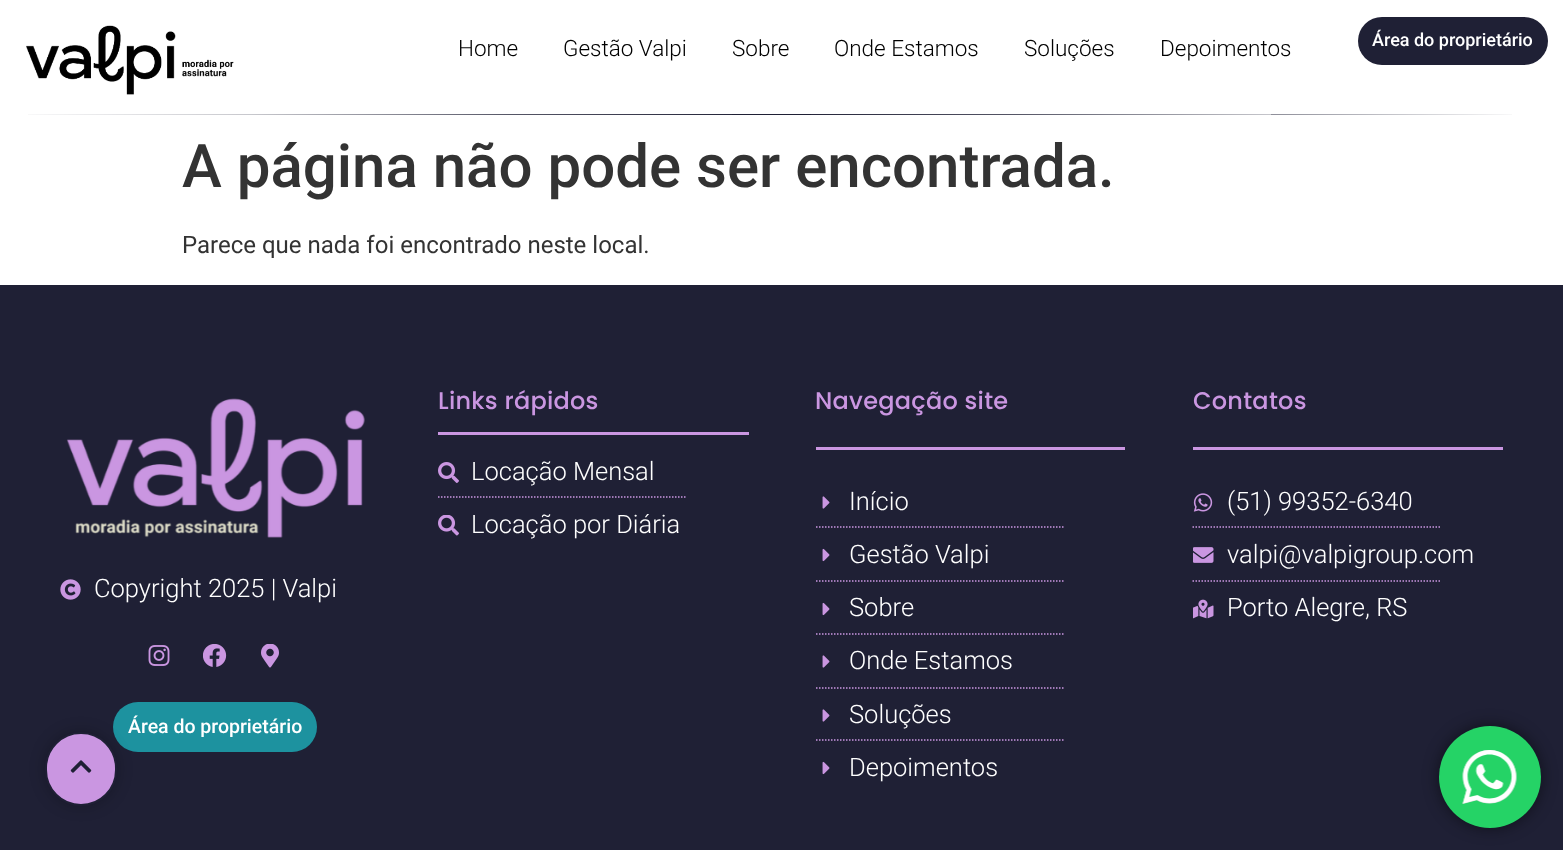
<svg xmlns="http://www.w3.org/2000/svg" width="1563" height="850">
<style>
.a{font:300 22.5px Roboto;fill:#000}
.b{font:500 18px Roboto;fill:#fff}
.c{font:500 60px Roboto;fill:#333}
.d{font:24px Roboto;fill:#333}
.e{font:500 24px Poppins;letter-spacing:0.25px;fill:#ca96e1}
.f{font:300 25.5px Roboto;fill:#fff}
.g{font:500 19.5px Roboto;fill:#fff}
</style>
<rect width="100%" height="100%" fill="#fff"/>
<image href="1.png" x="26" y="25" width="208" height="70"/>
<rect fill="#1f2035" x="1358" y="17" width="190" height="48" rx="24"/>
<path fill="#1f2035" d="M781 114l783 1h-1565z"/>
<path fill="#1f2035" d="M0 285h1563v565H0z"/>
<rect fill="#1d929f" x="113" y="702" width="204" height="50" rx="25"/>
<rect fill="#00000040" filter="blur(7.5px)" x="45" y="732" width="72" height="74" rx="36"/>
<rect fill="#ca96e1" stroke="#1f2035" stroke-width="2" x="46" y="733" width="70" height="72" rx="35"/>
<image href="2.png" x="70" y="760" width="22" height="13"/>
<path fill="#ca96e1" d="M438 432h311v3H438z"/>
<image href="3.png" x="438" y="462" width="21" height="21"/>
<path fill="none" stroke="#ca96e1" stroke-width="1.5" stroke-dasharray="1.5 1.5" d="M438 497h247.5"/>
<image href="4.png" x="438" y="515" width="21" height="21"/>
<path fill="#ca96e1" d="M816 447h309v3H816z"/>
<image href="5.png" x="822" y="496" width="8" height="13"/>
<path fill="none" stroke="#ca96e1" stroke-width="1.5" stroke-dasharray="1.5 1.5" d="M816 527h247.5"/>
<image href="6.png" x="822" y="548" width="8" height="14"/>
<path fill="none" stroke="#ca96e1" stroke-width="1.5" stroke-dasharray="1.5 1.5" d="M816 581h247.5"/>
<image href="6.png" x="822" y="602" width="8" height="14"/>
<path fill="none" stroke="#ca96e1" stroke-width="1.5" stroke-dasharray="1.5 1.5" d="M816 634h247.5"/>
<image href="5.png" x="822" y="655" width="8" height="13"/>
<path fill="none" stroke="#ca96e1" stroke-width="1.5" stroke-dasharray="1.5 1.5" d="M816 688h247.5"/>
<image href="5.png" x="822" y="709" width="8" height="13"/>
<path fill="none" stroke="#ca96e1" stroke-width="1.5" stroke-dasharray="1.5 1.5" d="M816 740h247.5"/>
<image href="6.png" x="822" y="761" width="8" height="14"/>
<path fill="#ca96e1" d="M1193 447h310v3H1193z"/>
<image href="7.png" x="1193" y="493" width="20" height="19"/>
<path fill="none" stroke="#ca96e1" stroke-width="1.5" stroke-dasharray="1.5 1.5" d="M1192.5 527h249"/>
<image href="8.png" x="1193" y="547" width="21" height="16"/>
<path fill="none" stroke="#ca96e1" stroke-width="1.5" stroke-dasharray="1.5 1.5" d="M1192.5 581h249"/>
<image href="9.png" x="1193" y="599" width="21" height="20"/>
<image href="10.png" x="66" y="398" width="299" height="140"/>
<image href="11.png" x="60" y="579" width="21" height="21"/>
<image href="12.png" x="148" y="645" width="22" height="21"/>
<image href="13.png" x="203" y="644" width="24" height="23"/>
<image href="14.png" x="261" y="644" width="18" height="24"/>
<rect fill="#00000080" filter="blur(8px)" x="1439" y="726" width="102" height="102" rx="51"/>
<circle fill="#25d366" cx="1490" cy="777" r="51"/>
<image href="15.png" x="1462" y="750" width="55" height="54"/>
<text class="a" x="458" y="56">Home</text>
<text class="a" x="563" y="56">Gestão Valpi</text>
<text class="a" x="732" y="56">Sobre</text>
<text class="a" x="834" y="56">Onde Estamos</text>
<text class="a" x="1024" y="56">Soluções</text>
<text class="a" x="1160" y="56">Depoimentos</text>
<text class="b" x="1372" y="46">Área do proprietário</text>
<text class="c" x="182" y="187">A página não pode ser encontrada.</text>
<text class="d" x="182" y="253">Parece que nada foi encontrado neste local.</text>
<text class="e" x="438" y="409">Links rápidos</text>
<text class="f" x="471" y="480">Locação Mensal</text>
<text class="f" x="471" y="533">Locação por Diária</text>
<text class="e" x="815" y="409">Navegação site</text>
<text class="f" x="849" y="510">Início</text>
<text class="f" x="849" y="563">Gestão Valpi</text>
<text class="f" x="849" y="616">Sobre</text>
<text class="f" x="849" y="669">Onde Estamos</text>
<text class="f" x="849" y="723">Soluções</text>
<text class="f" x="849" y="776">Depoimentos</text>
<text class="e" x="1193" y="409">Contatos</text>
<text class="f" x="1227" y="510">(51) 99352-6340</text>
<text class="f" x="1227" y="563">valpi@valpigroup.com</text>
<text class="f" x="1227" y="616">Porto Alegre, RS</text>
<text class="f" x="94" y="597">Copyright 2025 | Valpi</text>
<text class="g" x="128" y="733">Área do proprietário</text>
</svg>
